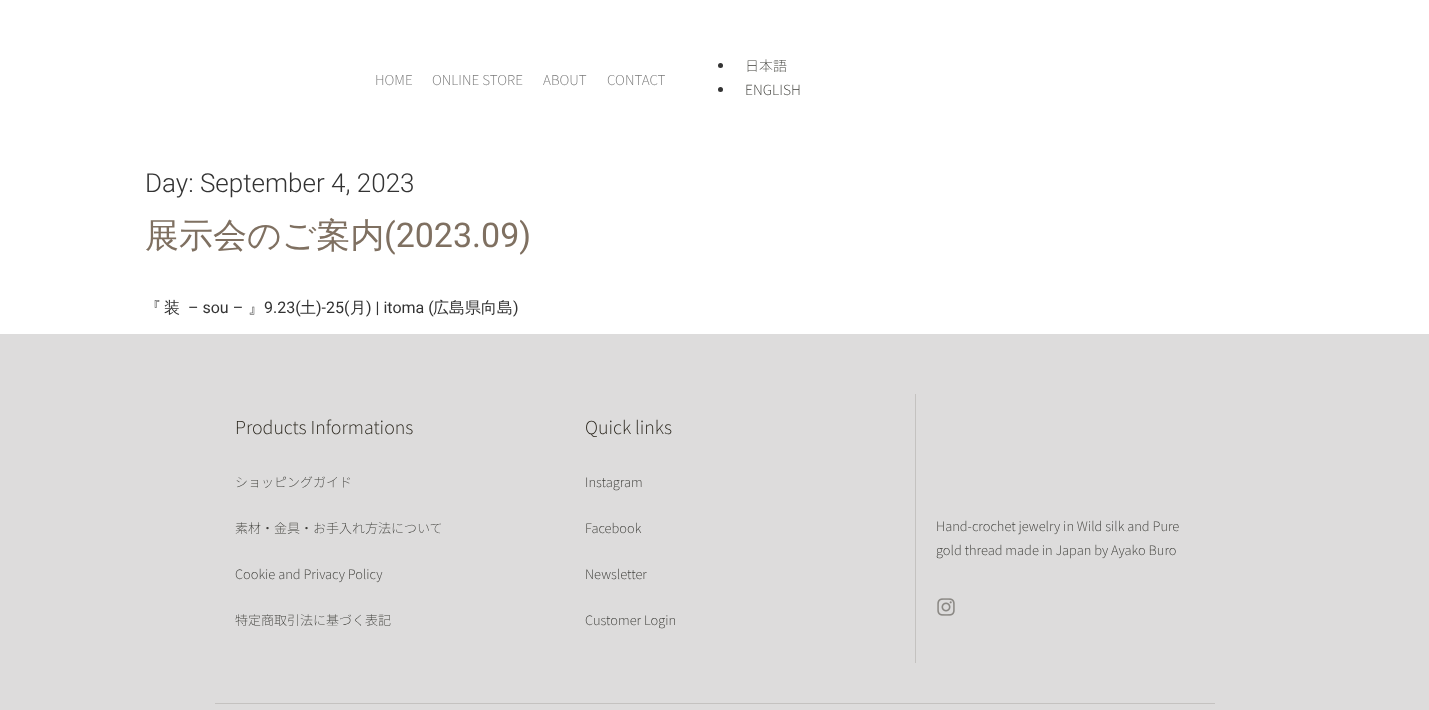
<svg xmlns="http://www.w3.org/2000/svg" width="1429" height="710">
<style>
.a{font:300 15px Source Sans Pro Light;fill:#7a7a7a}
.b{font:200 14px Noto Sans JP;fill:#40403c}
.c{font:300 26px Roboto;fill:#333}
.d{font:500 34px WenQuanYi Zen Hei;fill:#7f7061}
.e{font:34px Roboto;fill:#7f7061}
.f{font:500 16px WenQuanYi Zen Hei;fill:#333}
.g{font:16px Roboto;fill:#333}
.h{font:200 18px Noto Sans JP;fill:#2a261d}
.i{font:200 13px Noto Sans JP;fill:#40403c}
</style>
<rect width="100%" height="100%" fill="#fff"/>
<circle fill="#333" cx="720.5" cy="65.5" r="2.5"/>
<circle fill="#333" cx="720.5" cy="89.5" r="2.5"/>
<path fill="#dddcdc" d="M0 334h1429v376H0z"/>
<path fill="#c4c2c0" d="M915 394h1v269H915z"/>
<image href="1.png" x="937" y="598" width="18" height="18"/>
<path fill="#c4c2c0" d="M215 703h1000v1H215z"/>
<text class="a" x="375" y="85">HOME</text>
<text class="a" x="432" y="85">ONLINE STORE</text>
<text class="a" x="543" y="85">ABOUT</text>
<text class="a" x="607" y="85">CONTACT</text>
<text class="b" x="745" y="71">日本語</text>
<text class="b" x="745" y="95">ENGLISH</text>
<text class="c" x="145" y="192">Day: September 4, 2023</text>
<text class="d" x="145" y="247">展示会のご案内</text>
<text class="e" x="384" y="247">(2023.09)</text>
<text class="f" x="145" y="313">『</text>
<text class="f" x="164" y="313">装</text>
<text class="g" x="188" y="313">– sou –</text>
<text class="f" x="248" y="313">』</text>
<text class="g" x="264" y="313">9.23(</text>
<text class="f" x="300" y="313">土</text>
<text class="g" x="316" y="313">)-25(</text>
<text class="f" x="350" y="313">月</text>
<text class="g" x="366" y="313">) | itoma (</text>
<text class="f" x="433" y="313">広島県向島</text>
<text class="g" x="513" y="313">)</text>
<text class="h" x="235" y="434">Products Informations</text>
<text class="i" x="235" y="487">ショッピングガイド</text>
<text class="i" x="235" y="533">素材・金具・お手入れ方法について</text>
<text class="i" x="235" y="579">Cookie and Privacy Policy</text>
<text class="i" x="235" y="625">特定商取引法に基づく表記</text>
<text class="h" x="585" y="434">Quick links</text>
<text class="i" x="585" y="487">Instagram</text>
<text class="i" x="585" y="533">Facebook</text>
<text class="i" x="585" y="579">Newsletter</text>
<text class="i" x="585" y="625">Customer Login</text>
<text class="i" x="936" y="531">Hand-crochet jewelry in Wild silk and Pure</text>
<text class="i" x="936" y="555">gold thread made in Japan by Ayako Buro</text>
</svg>
